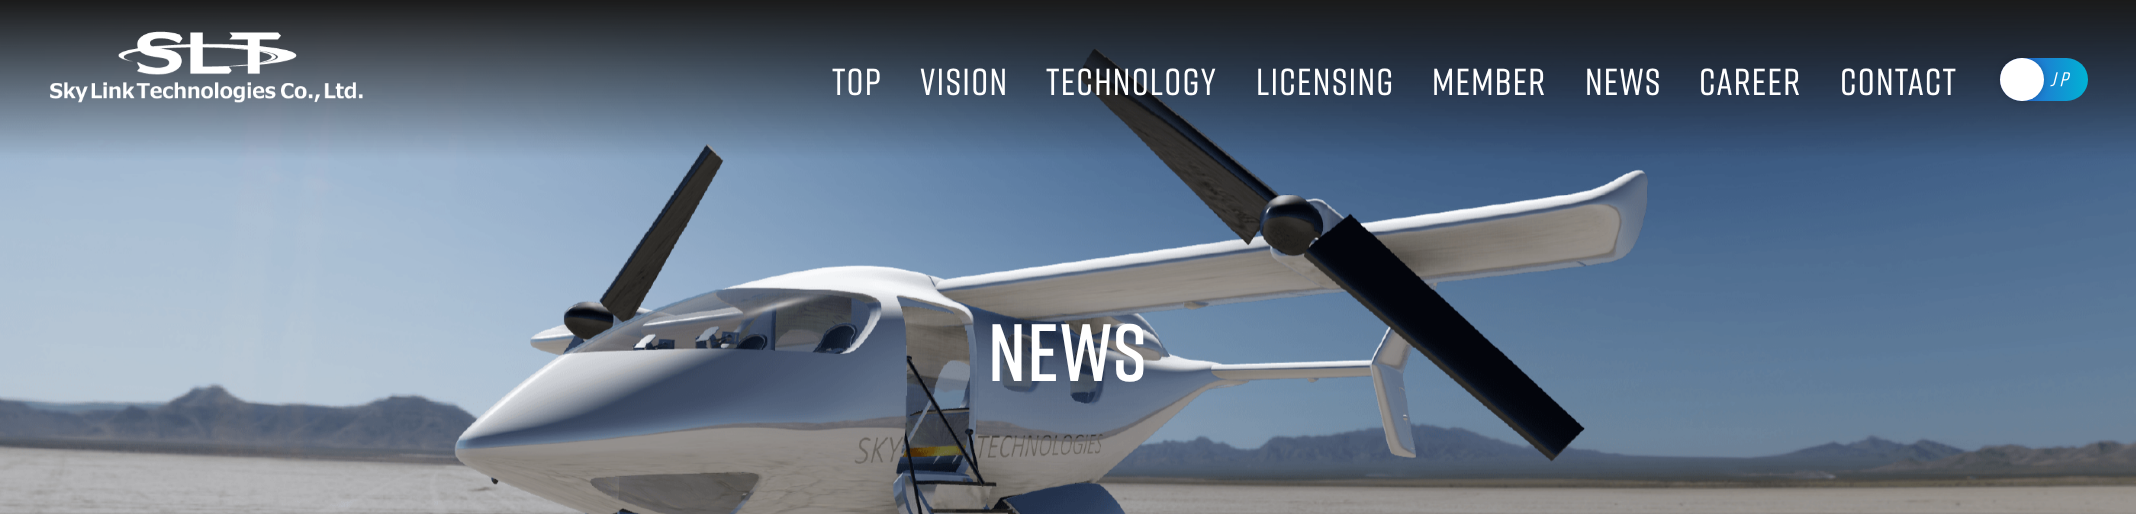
<svg xmlns="http://www.w3.org/2000/svg" width="2136" height="514">
<style>
.a{font:500 37.5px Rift;letter-spacing:1.25px;fill:#fff}
.b{font:600 81px Rift;letter-spacing:1.25px;fill:#fff}
</style>
<defs>
<linearGradient id="g1" gradientUnits="userSpaceOnUse" x1="2000" y1="79" x2="2088" y2="79"><stop offset="0" stop-color="#3650ce"/><stop offset="1" stop-color="#00b3d5"/></linearGradient>
</defs>
<rect width="100%" height="100%" fill="#fff"/>
<image href="3.png" x="0" y="0" width="2136" height="514"/>
<image href="1.png" x="50" y="31" width="313" height="72"/>
<rect fill="url(#g1)" x="2000" y="58" width="88" height="43" rx="21.5"/>
<image href="2.png" x="2050" y="72" width="20" height="15"/>
<rect fill="#00000033" filter="blur(3px)" x="2000" y="58" width="44" height="43" rx="21.5"/>
<rect fill="#fff" x="2000" y="58" width="44" height="43" rx="21.5"/>
<text class="a" x="832" y="95">TOP</text>
<text class="a" x="920" y="95">VISION</text>
<text class="a" x="1046" y="95">TECHNOLOGY</text>
<text class="a" x="1256" y="95">LICENSING</text>
<text class="a" x="1432" y="95">MEMBER</text>
<text class="a" x="1585" y="95">NEWS</text>
<text class="a" x="1699" y="95">CAREER</text>
<text class="a" x="1840" y="95">CONTACT</text>
<text class="b" x="988" y="381">NEWS</text>
</svg>
